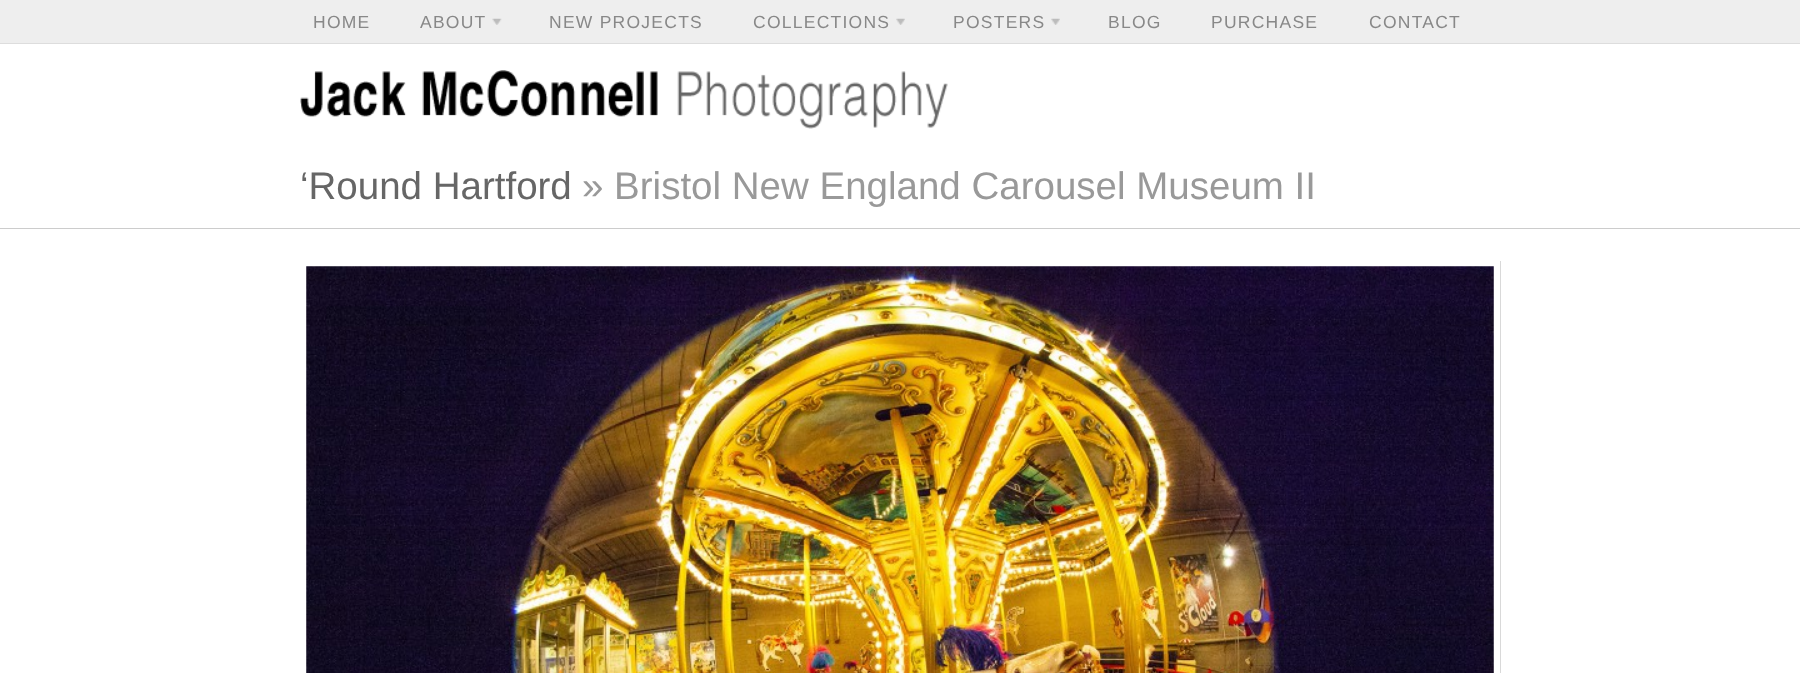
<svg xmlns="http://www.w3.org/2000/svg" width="1800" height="673">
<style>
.a{font:17.5px Liberation Sans;letter-spacing:1.25px;fill:#888}
.b{font:38.5px Liberation Sans;fill:#666}
.c{font:38.5px Liberation Sans;fill:#999}
</style>
<defs>
<clipPath id="clip1"><path d="M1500 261h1v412H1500z"/></clipPath>
</defs>
<rect width="100%" height="100%" fill="#fff"/>
<path fill="#eee" d="M0 0h1800v43H0z"/>
<path fill="#ddd" d="M0 43h1800v1H0z"/>
<image href="1.png" x="492" y="18" width="10" height="7"/>
<image href="2.png" x="896" y="18" width="9" height="7"/>
<image href="2.png" x="1051" y="18" width="9" height="7"/>
<image href="3.png" x="300" y="70" width="648" height="59"/>
<path fill="#ccc" d="M0 228h1800v1H0z"/>
<g clip-path="url(#clip1)">
<path fill="#00000026" filter="blur(0.5px)" d="M301 261h1200v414H301z"/>
</g>
<image href="4.png" x="306" y="266" width="1188" height="407"/>
<text class="a" x="313" y="28">HOME</text>
<text class="a" x="420" y="28">ABOUT</text>
<text class="a" x="549" y="28">NEW PROJECTS</text>
<text class="a" x="753" y="28">COLLECTIONS</text>
<text class="a" x="953" y="28">POSTERS</text>
<text class="a" x="1108" y="28">BLOG</text>
<text class="a" x="1211" y="28">PURCHASE</text>
<text class="a" x="1369" y="28">CONTACT</text>
<text class="b" x="300" y="199">‘Round Hartford</text>
<text class="c" x="582" y="199">» Bristol New England Carousel Museum II</text>
</svg>
